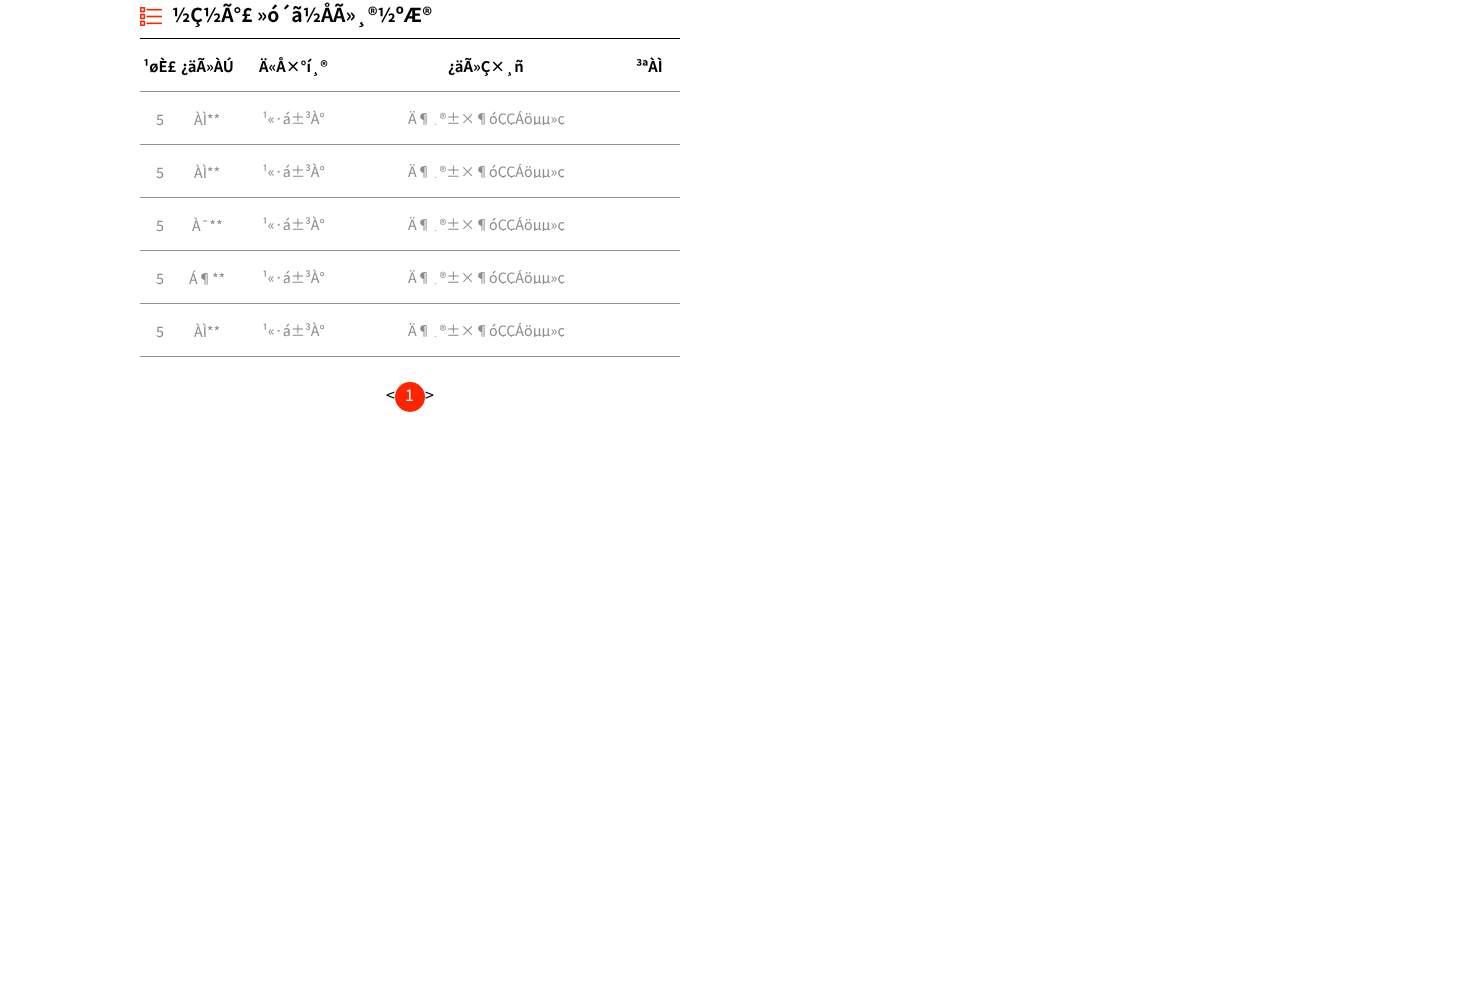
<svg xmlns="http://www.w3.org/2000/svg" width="1479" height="1005">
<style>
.a{font:bold 19.25px Noto Sans KR;fill:#000}
.b{font:bold 14.75px Noto Sans KR;fill:#000}
.c{font:14.25px Noto Sans KR;fill:#8c8c8c}
.d{font:16px Noto Sans KR;fill:#000}
.e{font:16px Noto Sans KR;fill:#fff}
</style>
<defs>
<clipPath id="clip1"><path d="M354 111h265v14H354z"/></clipPath>
<clipPath id="clip2"><path d="M354 164h265v14H354z"/></clipPath>
<clipPath id="clip3"><path d="M354 217h265v14H354z"/></clipPath>
<clipPath id="clip4"><path d="M354 270h265v14H354z"/></clipPath>
<clipPath id="clip5"><path d="M354 323h265v14H354z"/></clipPath>
</defs>
<rect width="100%" height="100%" fill="#fff"/>
<image href="1.png" x="140" y="7" width="22" height="19"/>
<path fill="#000" d="M140 38h540v1H140z"/>
<path fill="#929292" d="M140 91h540v1H140z"/>
<path fill="#929292" d="M140 144h540v1H140z"/>
<path fill="#929292" d="M140 197h540v1H140z"/>
<path fill="#929292" d="M140 250h540v1H140z"/>
<path fill="#929292" d="M140 303h540v1H140z"/>
<path fill="#929292" d="M140 356h540v1H140z"/>
<circle fill="#ff2400" cx="410" cy="397" r="15"/>
<text class="a" x="172" y="22">½Ç½Ã°£ »ó´ã½ÅÃ»¸®½ºÆ®</text>
<text class="b" x="143" y="72">¹øÈ£</text>
<text class="b" x="181" y="72">¿äÃ»ÀÚ</text>
<text class="b" x="259" y="72">Ä«Å×°í¸®</text>
<text class="b" x="448" y="72">¿äÃ»Ç×¸ñ</text>
<text class="b" x="636" y="72">³ªÀÌ</text>
<text class="c" x="156" y="125">5</text>
<text class="c" x="194" y="125">ÀÌ**</text>
<text class="c" x="262" y="124">¹«·á±³À°</text>
<g clip-path="url(#clip1)">
<text class="c" x="408" y="124">Ä¶¸®±×¶óÇÇÁöµµ»ç</text>
</g>
<text class="c" x="156" y="178">5</text>
<text class="c" x="194" y="178">ÀÌ**</text>
<text class="c" x="262" y="177">¹«·á±³À°</text>
<g clip-path="url(#clip2)">
<text class="c" x="408" y="177">Ä¶¸®±×¶óÇÇÁöµµ»ç</text>
</g>
<text class="c" x="156" y="231">5</text>
<text class="c" x="192" y="231">À¯**</text>
<text class="c" x="262" y="230">¹«·á±³À°</text>
<g clip-path="url(#clip3)">
<text class="c" x="408" y="230">Ä¶¸®±×¶óÇÇÁöµµ»ç</text>
</g>
<text class="c" x="156" y="284">5</text>
<text class="c" x="189" y="284">Á¶**</text>
<text class="c" x="262" y="283">¹«·á±³À°</text>
<g clip-path="url(#clip4)">
<text class="c" x="408" y="283">Ä¶¸®±×¶óÇÇÁöµµ»ç</text>
</g>
<text class="c" x="156" y="337">5</text>
<text class="c" x="194" y="337">ÀÌ**</text>
<text class="c" x="262" y="336">¹«·á±³À°</text>
<g clip-path="url(#clip5)">
<text class="c" x="408" y="336">Ä¶¸®±×¶óÇÇÁöµµ»ç</text>
</g>
<text class="d" x="386" y="401">&lt;</text>
<text class="e" x="405" y="401">1</text>
<text class="d" x="425" y="401">&gt;</text>
</svg>
